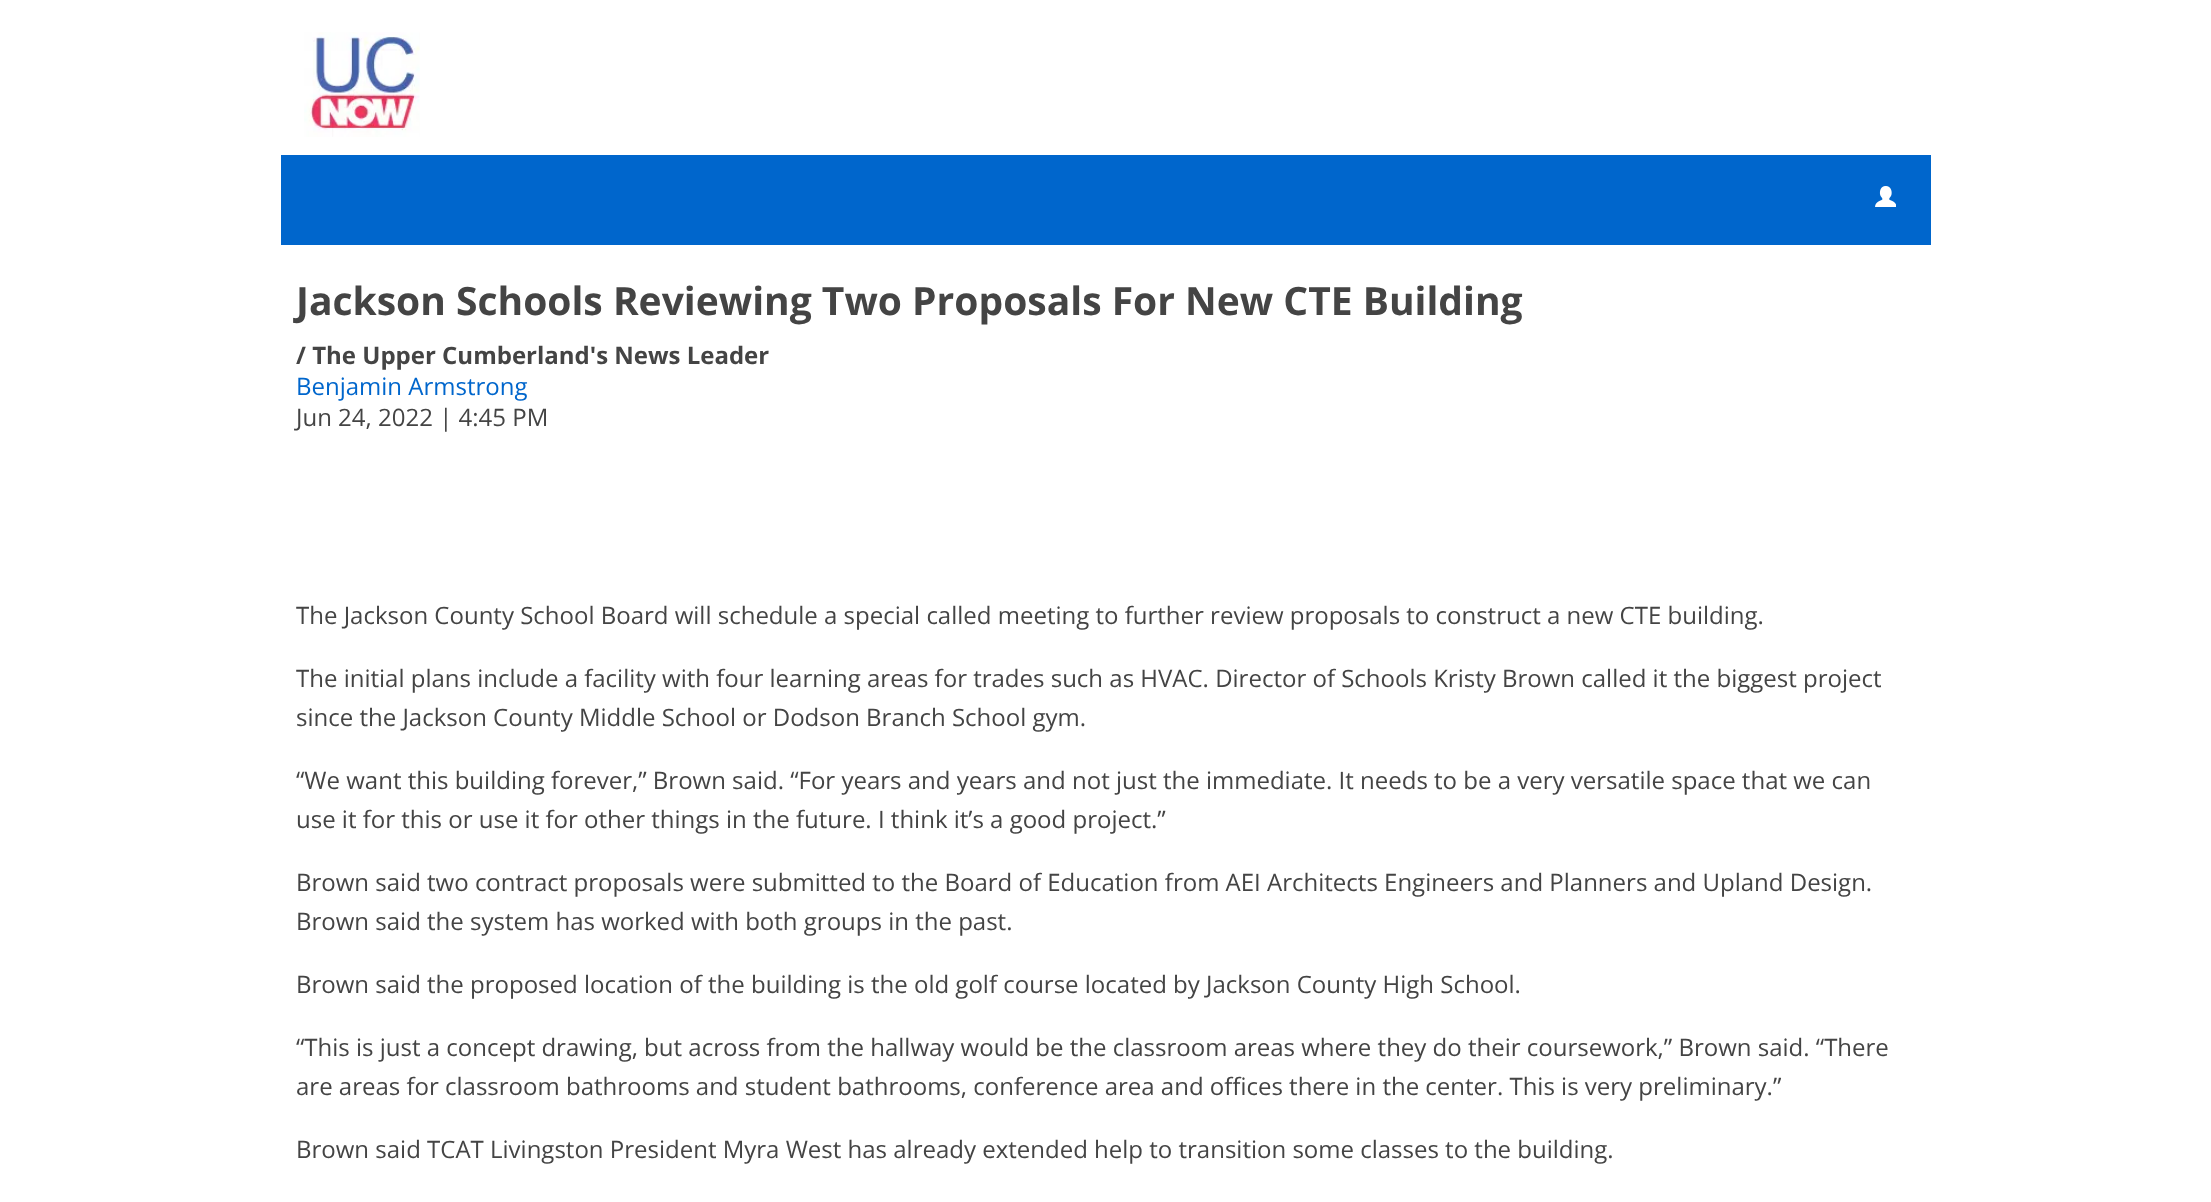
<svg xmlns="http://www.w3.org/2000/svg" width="2211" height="1202">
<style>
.a{font:bold 39px Open Sans;fill:#444}
.b{font:bold 24px Open Sans;fill:#444}
.c{font:24px Open Sans;fill:#06c}
.d{font:24px Open Sans;fill:#444}
</style>
<rect width="100%" height="100%" fill="#fff"/>
<image href="1.png" x="304" y="32" width="116" height="105"/>
<path fill="#06c" d="M281 155h1650v90H281z"/>
<image href="2.png" x="1875" y="186" width="21" height="21"/>
<text class="a" x="296" y="315">Jackson Schools Reviewing Two Proposals For New CTE Building</text>
<text class="b" x="296" y="364">/ The Upper Cumberland's News Leader</text>
<text class="c" x="296" y="395">Benjamin Armstrong</text>
<text class="d" x="296" y="426">Jun 24, 2022 | 4:45 PM</text>
<text class="d" x="296" y="624">The Jackson County School Board will schedule a special called meeting to further review proposals to construct a new CTE building.</text>
<text class="d" x="296" y="687">The initial plans include a facility with four learning areas for trades such as HVAC. Director of Schools Kristy Brown called it the biggest project</text>
<text class="d" x="296" y="726">since the Jackson County Middle School or Dodson Branch School gym.</text>
<text class="d" x="296" y="789">“We want this building forever,” Brown said. “For years and years and not just the immediate. It needs to be a very versatile space that we can</text>
<text class="d" x="296" y="828">use it for this or use it for other things in the future. I think it’s a good project.”</text>
<text class="d" x="296" y="891">Brown said two contract proposals were submitted to the Board of Education from AEI Architects Engineers and Planners and Upland Design.</text>
<text class="d" x="296" y="930">Brown said the system has worked with both groups in the past.</text>
<text class="d" x="296" y="993">Brown said the proposed location of the building is the old golf course located by Jackson County High School.</text>
<text class="d" x="296" y="1056">“This is just a concept drawing, but across from the hallway would be the classroom areas where they do their coursework,” Brown said. “There</text>
<text class="d" x="296" y="1095">are areas for classroom bathrooms and student bathrooms, conference area and offices there in the center. This is very preliminary.”</text>
<text class="d" x="296" y="1158">Brown said TCAT Livingston President Myra West has already extended help to transition some classes to the building.</text>
</svg>
